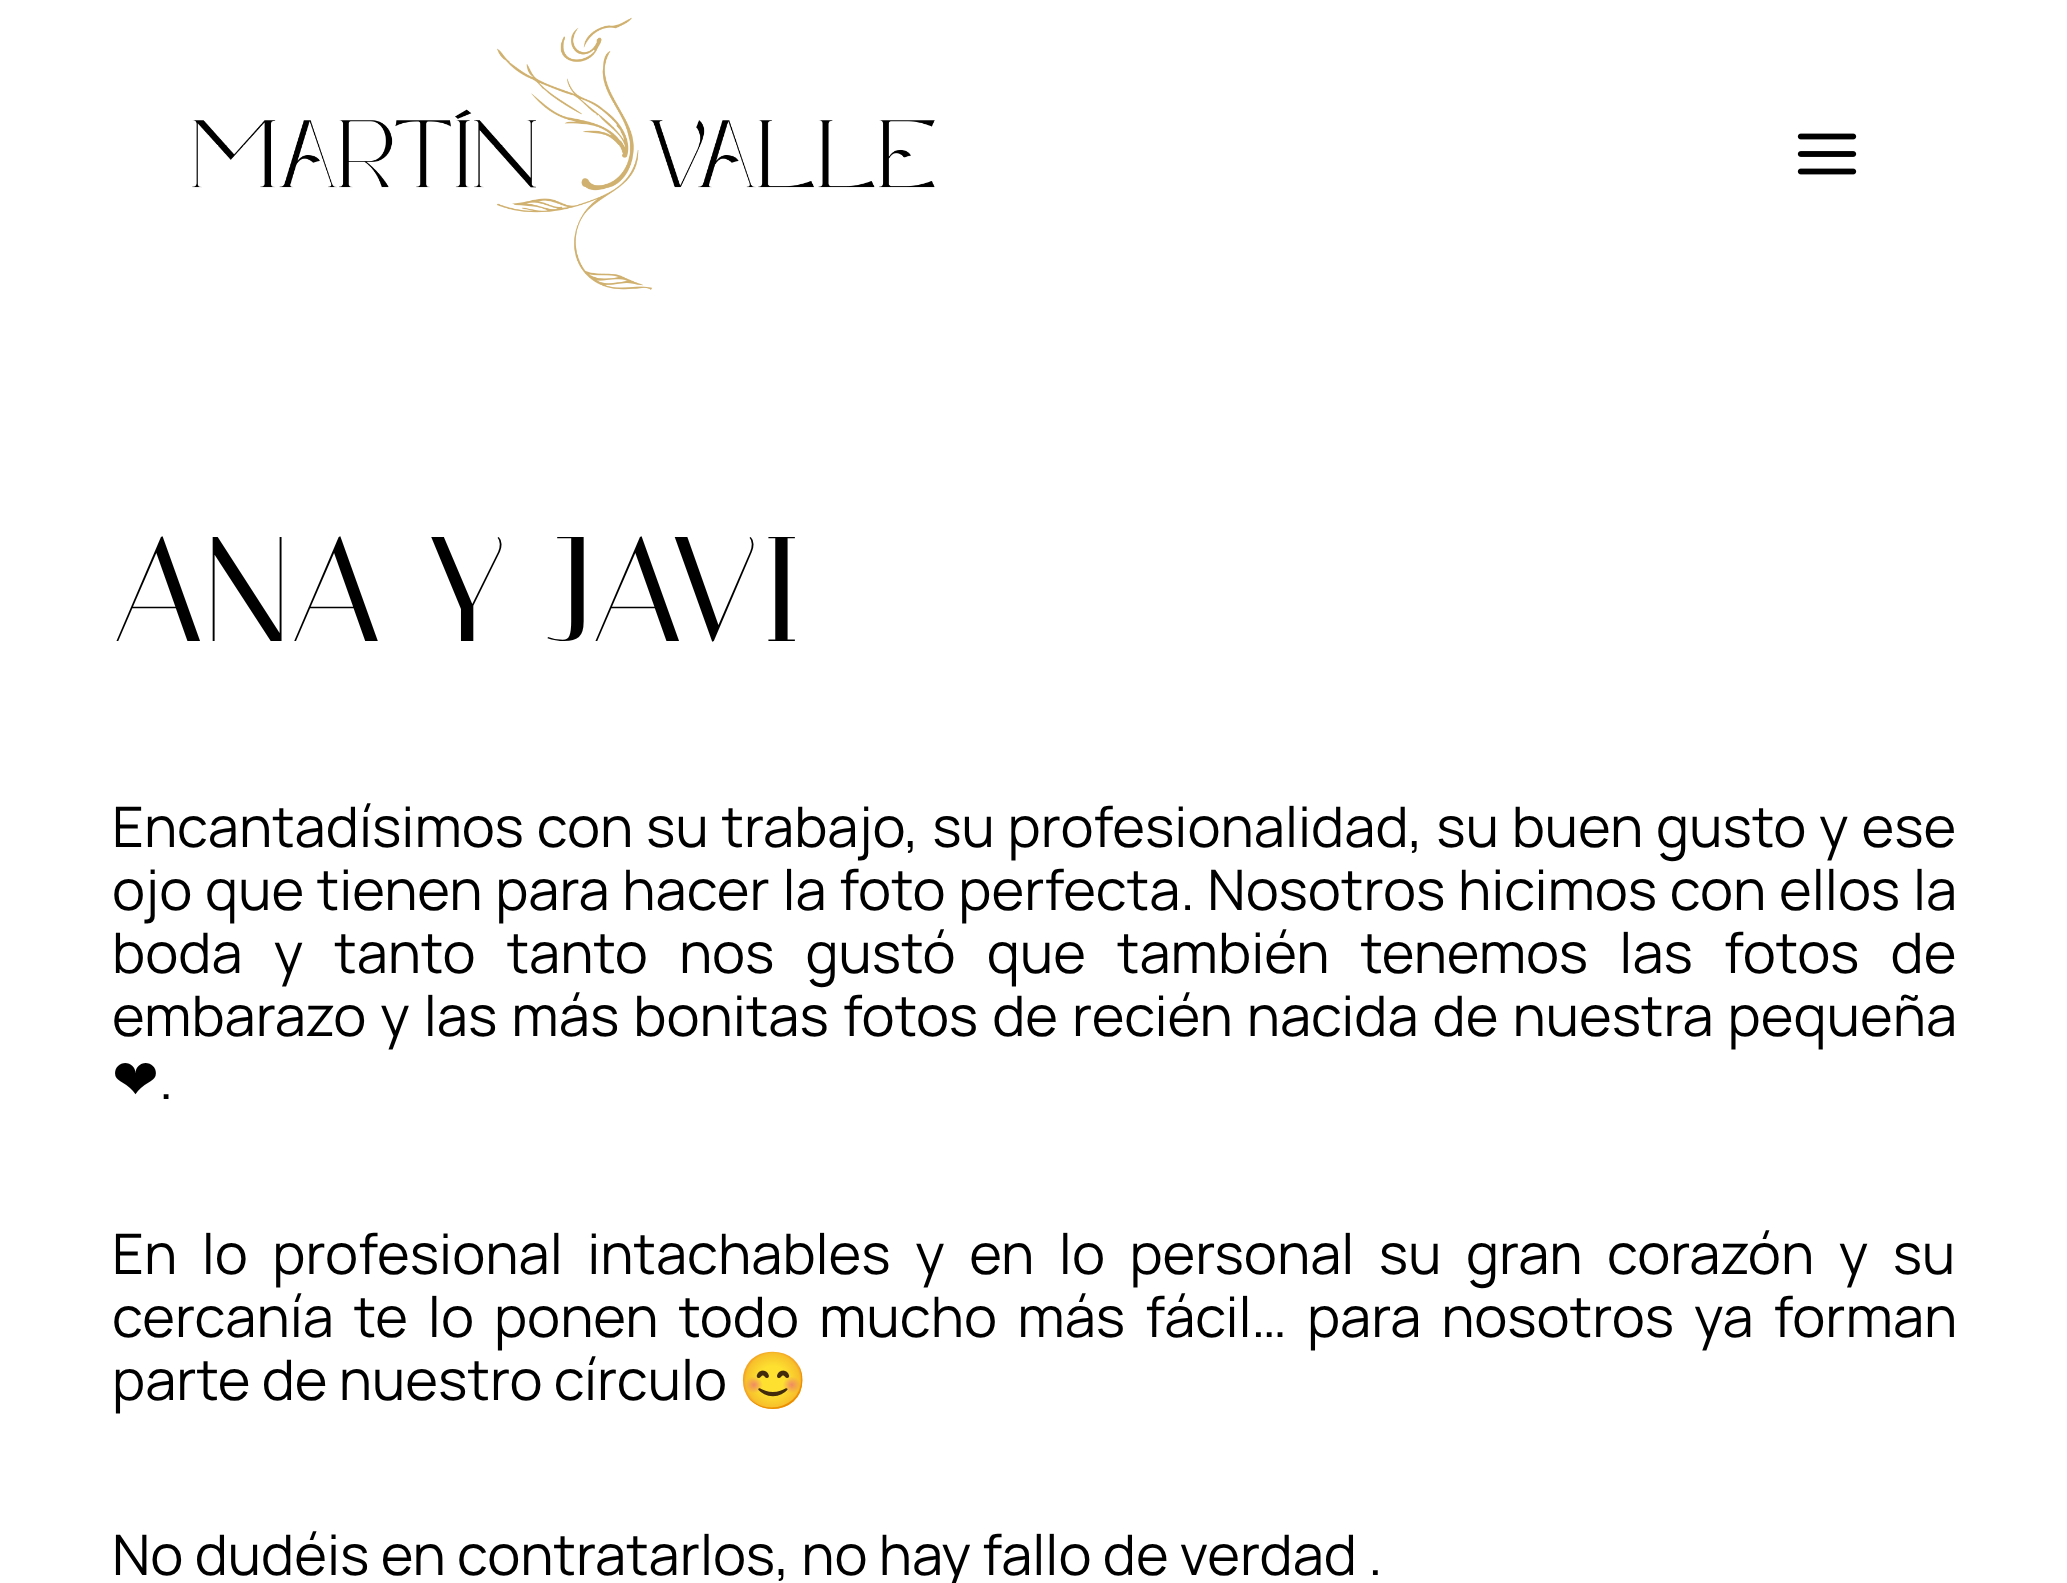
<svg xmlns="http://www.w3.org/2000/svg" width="2067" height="1583">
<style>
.a{font:148.75px Italiana;fill:#000}
.b{font:56px Manrope;fill:#000}
.c{font:56px DejaVu Sans;fill:#000}
.d{font:56px Noto Color Emoji;fill:#000}
</style>
<rect width="100%" height="100%" fill="#fff"/>
<image href="1.png" x="192" y="17" width="743" height="273"/>
<image href="2.png" x="1797" y="133" width="60" height="42"/>
<text class="a" x="112" y="641">ANA Y JAVI</text>
<text class="b" x="112" y="847" word-spacing="1.6">Encantadísimos con su trabajo, su profesionalidad, su buen gusto y ese</text>
<text class="b" x="112" y="910" word-spacing="1.5">ojo que tienen para hacer la foto perfecta. Nosotros hicimos con ellos la</text>
<text class="b" x="112" y="973" word-spacing="19.9">boda y tanto tanto nos gustó que también tenemos las fotos de</text>
<text class="b" x="112" y="1036" word-spacing="2.75">embarazo y las más bonitas fotos de recién nacida de nuestra pequeña</text>
<text class="c" x="112" y="1099">❤</text>
<text class="b" x="159" y="1099">.</text>
<text class="b" x="112" y="1274" word-spacing="13.25">En lo profesional intachables y en lo personal su gran corazón y su</text>
<text class="b" x="112" y="1337" word-spacing="8.75">cercanía te lo ponen todo mucho más fácil… para nosotros ya forman</text>
<text class="b" x="112" y="1400">parte de nuestro círculo</text>
<text class="d" x="738" y="1400">😊</text>
<text class="b" x="112" y="1575">No dudéis en contratarlos, no hay fallo de verdad .</text>
</svg>
